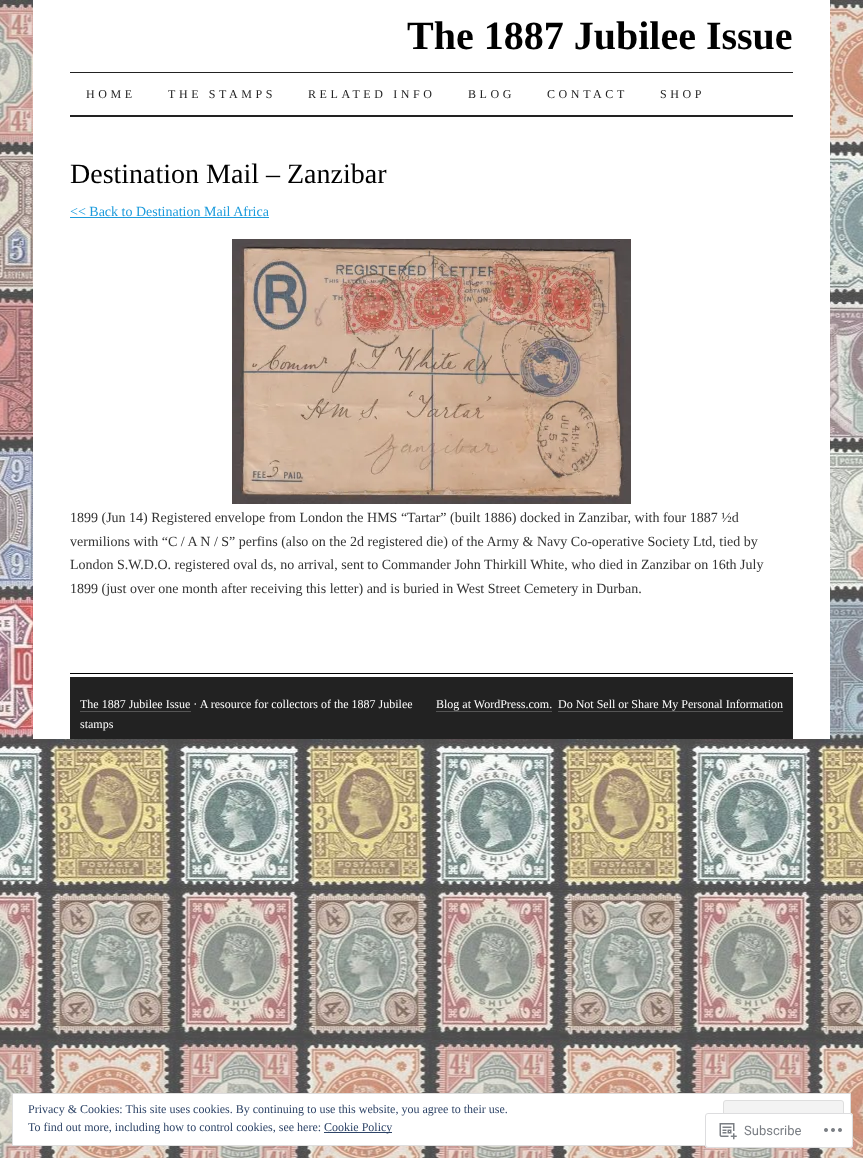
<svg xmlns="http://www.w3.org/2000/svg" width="863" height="1158">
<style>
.a{font:bold 40px Liberation Serif;fill:#000}
.b{font:12px Liberation Serif;letter-spacing:3.6px;fill:#222}
.c{font:28px Liberation Serif;fill:#000}
.d{font:14px Liberation Serif;fill:#1c9bdc}
.e{font:14px Liberation Serif;fill:#333}
.f{font:12px Liberation Serif;fill:#fff}
.g{font:12px Liberation Serif;fill:#2e4467}
.h{font:13px Roboto;fill:#7a7e84}
</style>
<rect width="100%" height="100%" fill="#fff"/>
<image href="1.png" x="0" y="0" width="863" height="1158"/>
<path fill="#fff" d="M33 0h797v739H33z"/>
<path fill="#222" d="M70 72h723v1H70z"/>
<path fill="#222" d="M70 115h723v2H70z"/>
<path fill="#1c9bdc" d="M70 217h199v1H70z"/>
<image href="2.png" x="232" y="239" width="399" height="265"/>
<path fill="#000" d="M70 673h723v1H70z"/>
<path fill="#222" d="M70 677h723v62H70z"/>
<path fill="#555" d="M80 711h111v1H80z"/>
<path fill="#555" d="M436 711h116v1H436z"/>
<path fill="#555" d="M558 711h225v1H558z"/>
<path fill="#fff" stroke="#dedede" d="M12.5 1093.5h838v52H12.5z"/>
<rect fill="#f3f3f3" stroke="#dedede" x="723.5" y="1100.5" width="120" height="38" rx="2.5"/>
<path fill="#2e4467" d="M324 1132h68v1H324z"/>
<rect fill="#fffffffa" x="705" y="1113" width="148" height="35" rx="3"/>
<rect fill="none" stroke="#dcdcdefa" x="705.5" y="1113.5" width="147" height="34" rx="2.5"/>
<image href="3.png" x="719" y="1123" width="18" height="17"/>
<image href="4.png" x="824" y="1128" width="18" height="4"/>
<text class="a" x="407" y="49">The 1887 Jubilee Issue</text>
<text class="b" x="86" y="98">HOME</text>
<text class="b" x="168" y="98">THE STAMPS</text>
<text class="b" x="308" y="98">RELATED INFO</text>
<text class="b" x="468" y="98">BLOG</text>
<text class="b" x="547" y="98">CONTACT</text>
<text class="b" x="660" y="98">SHOP</text>
<text class="c" x="70" y="183">Destination Mail – Zanzibar</text>
<text class="d" x="70" y="216">&lt;&lt; Back to Destination Mail Africa</text>
<text class="e" x="70" y="522">1899 (Jun 14) Registered envelope from London the HMS “Tartar” (built 1886) docked in Zanzibar, with four 1887 ½d</text>
<text class="e" x="70" y="546">vermilions with “C / A N / S” perfins (also on the 2d registered die) of the Army &amp; Navy Co-operative Society Ltd, tied by</text>
<text class="e" x="70" y="569">London S.W.D.O. registered oval ds, no arrival, sent to Commander John Thirkill White, who died in Zanzibar on 16th July</text>
<text class="e" x="70" y="593">1899 (just over one month after receiving this letter) and is buried in West Street Cemetery in Durban.</text>
<text class="f" x="80" y="708">The 1887 Jubilee Issue · A resource for collectors of the 1887 Jubilee</text>
<text class="f" x="80" y="728">stamps</text>
<text class="f" x="436" y="708">Blog at WordPress.com.</text>
<text class="f" x="558" y="708">Do Not Sell or Share My Personal Information</text>
<text class="g" x="28" y="1113">Privacy &amp; Cookies: This site uses cookies. By continuing to use this website, you agree to their use.</text>
<text class="g" x="28" y="1131">To find out more, including how to control cookies, see here:</text>
<text class="g" x="324" y="1131">Cookie Policy</text>
<text class="h" x="744" y="1135">Subscribe</text>
</svg>
